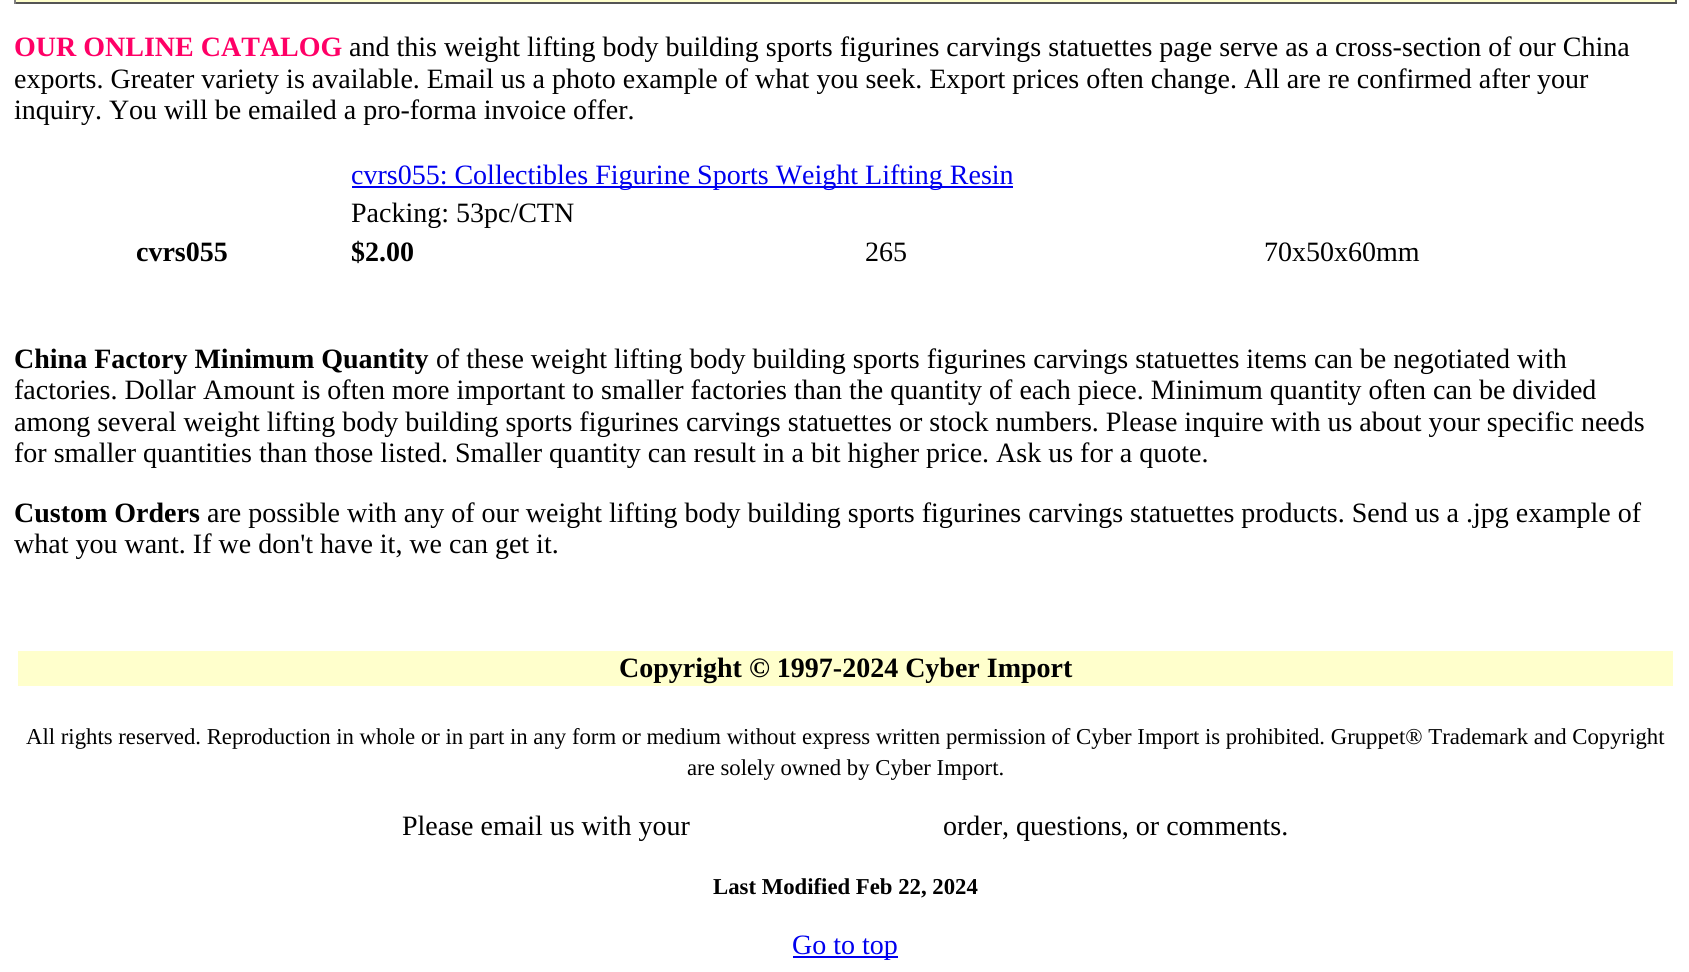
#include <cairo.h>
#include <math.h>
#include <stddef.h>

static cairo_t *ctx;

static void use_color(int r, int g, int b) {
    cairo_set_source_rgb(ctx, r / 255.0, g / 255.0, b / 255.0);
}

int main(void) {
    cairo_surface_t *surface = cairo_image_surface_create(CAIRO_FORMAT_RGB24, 1689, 972);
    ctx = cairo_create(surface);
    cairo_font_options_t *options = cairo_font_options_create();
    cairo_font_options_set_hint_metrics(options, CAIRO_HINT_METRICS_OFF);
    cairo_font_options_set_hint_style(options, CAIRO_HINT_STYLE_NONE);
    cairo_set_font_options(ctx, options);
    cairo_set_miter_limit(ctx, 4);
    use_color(255, 255, 255);
    cairo_paint(ctx);
    use_color(255, 255, 204);
    cairo_rectangle(ctx, 14, 0, 1663, 2);
    cairo_fill(ctx);
    use_color(85, 85, 85);
    cairo_rectangle(ctx, 1675, 0, 2, 4);
    cairo_fill(ctx);
    cairo_rectangle(ctx, 14, 2, 1663, 2);
    cairo_fill(ctx);
    use_color(128, 128, 128);
    cairo_rectangle(ctx, 14, 0, 2, 4);
    cairo_fill(ctx);
    cairo_select_font_face(ctx, "Liberation Serif", CAIRO_FONT_SLANT_NORMAL, CAIRO_FONT_WEIGHT_BOLD);
    cairo_set_font_size(ctx, 28);
    use_color(255, 0, 102);
    cairo_move_to(ctx, 14, 56);
    cairo_show_text(ctx, "OUR ONLINE CATALOG");
    cairo_select_font_face(ctx, "Liberation Serif", CAIRO_FONT_SLANT_NORMAL, CAIRO_FONT_WEIGHT_NORMAL);
    use_color(0, 0, 0);
    cairo_move_to(ctx, 349, 56);
    cairo_show_text(ctx, "and this weight lifting body building sports figurines carvings statuettes page serve as a cross-section of our China");
    cairo_move_to(ctx, 14, 88);
    cairo_show_text(ctx, "exports. Greater variety is available. Email us a photo example of what you seek. Export prices often change. All are re confirmed after your");
    cairo_move_to(ctx, 14, 119);
    cairo_show_text(ctx, "inquiry. You will be emailed a pro-forma invoice offer.");
    use_color(0, 0, 238);
    cairo_rectangle(ctx, 352, 186, 661, 2);
    cairo_fill(ctx);
    cairo_move_to(ctx, 351, 184);
    cairo_show_text(ctx, "cvrs055: Collectibles Figurine Sports Weight Lifting Resin");
    use_color(0, 0, 0);
    cairo_move_to(ctx, 351, 222);
    cairo_show_text(ctx, "Packing: 53pc/CTN");
    cairo_select_font_face(ctx, "Liberation Serif", CAIRO_FONT_SLANT_NORMAL, CAIRO_FONT_WEIGHT_BOLD);
    cairo_move_to(ctx, 136, 261);
    cairo_show_text(ctx, "cvrs055");
    cairo_move_to(ctx, 351, 261);
    cairo_show_text(ctx, "$2.00");
    cairo_select_font_face(ctx, "Liberation Serif", CAIRO_FONT_SLANT_NORMAL, CAIRO_FONT_WEIGHT_NORMAL);
    cairo_move_to(ctx, 865, 261);
    cairo_show_text(ctx, "265");
    cairo_move_to(ctx, 1264, 261);
    cairo_show_text(ctx, "70x50x60mm");
    cairo_select_font_face(ctx, "Liberation Serif", CAIRO_FONT_SLANT_NORMAL, CAIRO_FONT_WEIGHT_BOLD);
    cairo_move_to(ctx, 14, 368);
    cairo_show_text(ctx, "China Factory Minimum Quantity");
    cairo_select_font_face(ctx, "Liberation Serif", CAIRO_FONT_SLANT_NORMAL, CAIRO_FONT_WEIGHT_NORMAL);
    cairo_move_to(ctx, 436, 368);
    cairo_show_text(ctx, "of these weight lifting body building sports figurines carvings statuettes items can be negotiated with");
    cairo_move_to(ctx, 14, 399);
    cairo_show_text(ctx, "factories. Dollar Amount is often more important to smaller factories than the quantity of each piece. Minimum quantity often can be divided");
    cairo_move_to(ctx, 14, 431);
    cairo_show_text(ctx, "among several weight lifting body building sports figurines carvings statuettes or stock numbers. Please inquire with us about your specific needs");
    cairo_move_to(ctx, 14, 462);
    cairo_show_text(ctx, "for smaller quantities than those listed. Smaller quantity can result in a bit higher price. Ask us for a quote.");
    cairo_select_font_face(ctx, "Liberation Serif", CAIRO_FONT_SLANT_NORMAL, CAIRO_FONT_WEIGHT_BOLD);
    cairo_move_to(ctx, 14, 522);
    cairo_show_text(ctx, "Custom Orders");
    cairo_select_font_face(ctx, "Liberation Serif", CAIRO_FONT_SLANT_NORMAL, CAIRO_FONT_WEIGHT_NORMAL);
    cairo_move_to(ctx, 207, 522);
    cairo_show_text(ctx, "are possible with any of our weight lifting body building sports figurines carvings statuettes products. Send us a .jpg example of");
    cairo_move_to(ctx, 14, 553);
    cairo_show_text(ctx, "what you want. If we don't have it, we can get it.");
    use_color(255, 255, 204);
    cairo_rectangle(ctx, 18, 651, 1655, 35);
    cairo_fill(ctx);
    cairo_select_font_face(ctx, "Liberation Serif", CAIRO_FONT_SLANT_NORMAL, CAIRO_FONT_WEIGHT_BOLD);
    use_color(0, 0, 0);
    cairo_move_to(ctx, 619, 677);
    cairo_show_text(ctx, "Copyright © 1997-2024 Cyber Import");
    cairo_select_font_face(ctx, "Liberation Serif", CAIRO_FONT_SLANT_NORMAL, CAIRO_FONT_WEIGHT_NORMAL);
    cairo_set_font_size(ctx, 22.75);
    cairo_move_to(ctx, 26, 744);
    cairo_show_text(ctx, "All rights reserved. Reproduction in whole or in part in any form or medium without express written permission of Cyber Import is prohibited. Gruppet® Trademark and Copyright");
    cairo_move_to(ctx, 687, 775);
    cairo_show_text(ctx, "are solely owned by Cyber Import.");
    cairo_set_font_size(ctx, 28);
    cairo_move_to(ctx, 402, 835);
    cairo_show_text(ctx, "Please email us with your");
    cairo_move_to(ctx, 943, 835);
    cairo_show_text(ctx, "order, questions, or comments.");
    cairo_select_font_face(ctx, "Liberation Serif", CAIRO_FONT_SLANT_NORMAL, CAIRO_FONT_WEIGHT_BOLD);
    cairo_set_font_size(ctx, 22.75);
    cairo_move_to(ctx, 713, 894);
    cairo_show_text(ctx, "Last Modified Feb 22, 2024");
    use_color(0, 0, 238);
    cairo_rectangle(ctx, 793, 956, 105, 2);
    cairo_fill(ctx);
    cairo_select_font_face(ctx, "Liberation Serif", CAIRO_FONT_SLANT_NORMAL, CAIRO_FONT_WEIGHT_NORMAL);
    cairo_set_font_size(ctx, 28);
    cairo_move_to(ctx, 792, 954);
    cairo_show_text(ctx, "Go to top");
    cairo_surface_write_to_png(surface, "result.png");
    cairo_font_options_destroy(options);
    cairo_destroy(ctx);
    cairo_surface_destroy(surface);
    return 0;
}
